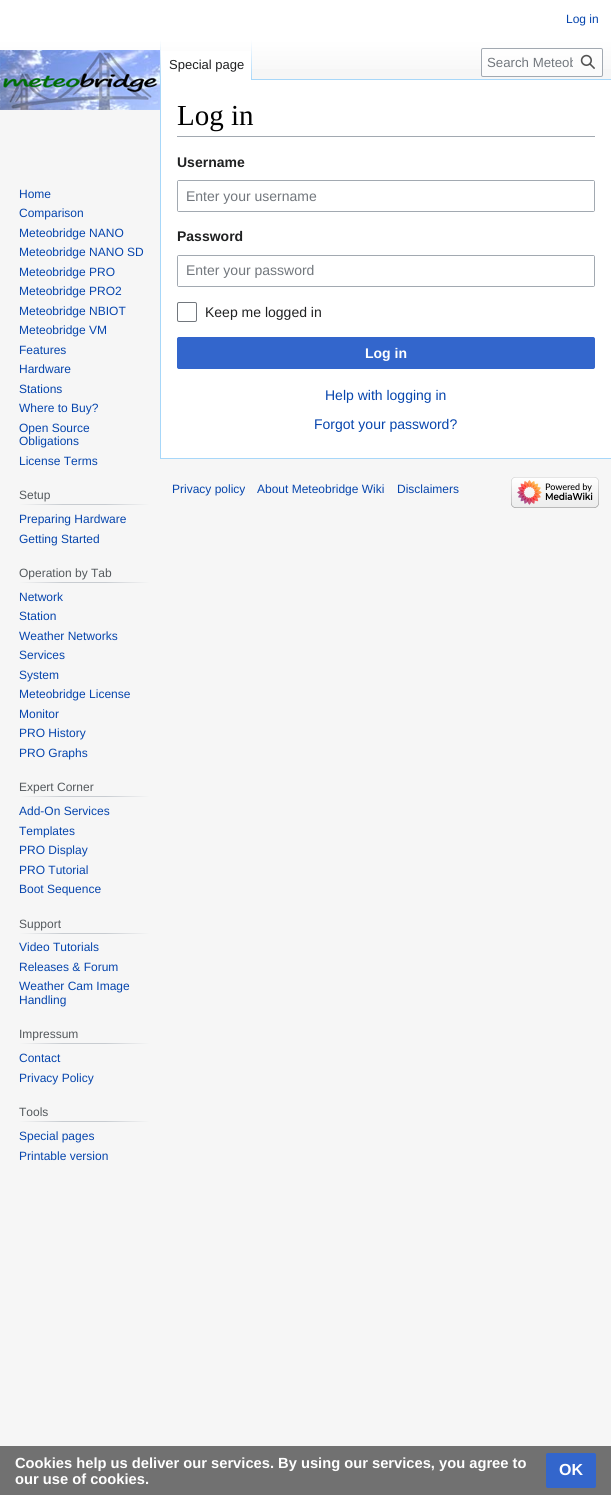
#include <cairo.h>
#include <math.h>
#include <stddef.h>

static cairo_t *ctx;

static void use_color(int r, int g, int b) {
    cairo_set_source_rgb(ctx, r / 255.0, g / 255.0, b / 255.0);
}

static void round_rect(double x, double y, double w, double h, double r) {
    cairo_new_sub_path(ctx);
    cairo_arc(ctx, x + w - r, y + h - r, r, 0, M_PI / 2);
    cairo_arc(ctx, x + r, y + h - r, r, M_PI / 2, M_PI);
    cairo_arc(ctx, x + r, y + r, r, M_PI, 1.5 * M_PI);
    cairo_arc(ctx, x + w - r, y + r, r, 1.5 * M_PI, 2 * M_PI);
    cairo_close_path(ctx);
}

static void picture(const char *path, double x, double y, double w, double h) {
    cairo_surface_t *image = cairo_image_surface_create_from_png(path);
    cairo_save(ctx);
    cairo_set_source_surface(ctx, image, x, y);
    cairo_rectangle(ctx, x, y, w, h);
    cairo_fill(ctx);
    cairo_restore(ctx);
    cairo_surface_destroy(image);
}

int main(void) {
    cairo_surface_t *surface = cairo_image_surface_create(CAIRO_FORMAT_RGB24, 611, 1495);
    ctx = cairo_create(surface);
    cairo_font_options_t *options = cairo_font_options_create();
    cairo_font_options_set_hint_metrics(options, CAIRO_HINT_METRICS_OFF);
    cairo_font_options_set_hint_style(options, CAIRO_HINT_STYLE_NONE);
    cairo_set_font_options(ctx, options);
    cairo_set_miter_limit(ctx, 4);
    cairo_pattern_t *gradient;
    use_color(246, 246, 246);
    cairo_paint(ctx);
    gradient = cairo_pattern_create_linear(306, 0, 306, 80);
    cairo_pattern_add_color_stop_rgba(gradient, 0.5, 1, 1, 1, 1);
    cairo_pattern_add_color_stop_rgba(gradient, 1, 0.965, 0.965, 0.965, 1);
    cairo_set_source(ctx, gradient);
    cairo_pattern_destroy(gradient);
    cairo_rectangle(ctx, 0, 0, 611, 69);
    cairo_fill(ctx);
    cairo_select_font_face(ctx, "Liberation Sans", CAIRO_FONT_SLANT_NORMAL, CAIRO_FONT_WEIGHT_NORMAL);
    cairo_set_font_size(ctx, 12);
    use_color(6, 69, 173);
    cairo_move_to(ctx, 566, 23);
    cairo_show_text(ctx, "Log in");
    use_color(167, 215, 249);
    cairo_rectangle(ctx, 160, 458, 451, 1);
    cairo_fill(ctx);
    cairo_rectangle(ctx, 160, 79, 1, 380);
    cairo_fill(ctx);
    gradient = cairo_pattern_create_linear(161, 40, 161, 80);
    cairo_pattern_add_color_stop_rgba(gradient, 0, 0.655, 0.843, 0.976, 0);
    cairo_pattern_add_color_stop_rgba(gradient, 1, 0.655, 0.843, 0.976, 1);
    cairo_set_source(ctx, gradient);
    cairo_pattern_destroy(gradient);
    cairo_rectangle(ctx, 160, 40, 1, 40);
    cairo_fill(ctx);
    use_color(255, 255, 255);
    cairo_rectangle(ctx, 161, 51, 90, 29);
    cairo_fill(ctx);
    gradient = cairo_pattern_create_linear(252, 40, 252, 80);
    cairo_pattern_add_color_stop_rgba(gradient, 0, 1, 1, 1, 1);
    cairo_pattern_add_color_stop_rgba(gradient, 1, 0.655, 0.843, 0.976, 1);
    cairo_set_source(ctx, gradient);
    cairo_pattern_destroy(gradient);
    cairo_rectangle(ctx, 251, 40, 1, 40);
    cairo_fill(ctx);
    cairo_set_font_size(ctx, 13);
    use_color(32, 33, 34);
    cairo_move_to(ctx, 169, 69);
    cairo_show_text(ctx, "Special page");
    cairo_set_source_rgba(ctx, 1, 1, 1, 0.5);
    round_rect(481.5, 48.5, 121, 28, 1.5);
    cairo_fill_preserve(ctx);
    use_color(162, 169, 177);
    cairo_set_line_width(ctx, 1);
    cairo_stroke(ctx);
    cairo_save(ctx);
    cairo_rectangle(ctx, 487, 55, 86, 15);
    cairo_clip(ctx);
    cairo_set_font_size(ctx, 13.25);
    use_color(114, 119, 125);
    cairo_move_to(ctx, 487, 67);
    cairo_show_text(ctx, "Search Meteob");
    cairo_restore(ctx);
    picture("img1.png", 580, 54, 15, 15);
    picture("img2.png", 0, 50, 160, 60);
    cairo_set_font_size(ctx, 12);
    use_color(6, 69, 173);
    cairo_move_to(ctx, 19, 198);
    cairo_show_text(ctx, "Home");
    cairo_move_to(ctx, 19, 217);
    cairo_show_text(ctx, "Comparison");
    cairo_move_to(ctx, 19, 237);
    cairo_show_text(ctx, "Meteobridge NANO");
    cairo_move_to(ctx, 19, 256);
    cairo_show_text(ctx, "Meteobridge NANO SD");
    cairo_move_to(ctx, 19, 276);
    cairo_show_text(ctx, "Meteobridge PRO");
    cairo_move_to(ctx, 19, 295);
    cairo_show_text(ctx, "Meteobridge PRO2");
    cairo_move_to(ctx, 19, 315);
    cairo_show_text(ctx, "Meteobridge NBIOT");
    cairo_move_to(ctx, 19, 334);
    cairo_show_text(ctx, "Meteobridge VM");
    cairo_move_to(ctx, 19, 354);
    cairo_show_text(ctx, "Features");
    cairo_move_to(ctx, 19, 373);
    cairo_show_text(ctx, "Hardware");
    cairo_move_to(ctx, 19, 393);
    cairo_show_text(ctx, "Stations");
    cairo_move_to(ctx, 19, 412);
    cairo_show_text(ctx, "Where to Buy?");
    cairo_move_to(ctx, 19, 432);
    cairo_show_text(ctx, "Open Source");
    cairo_move_to(ctx, 19, 445);
    cairo_show_text(ctx, "Obligations");
    cairo_move_to(ctx, 19, 465);
    cairo_show_text(ctx, "License Terms");
    gradient = cairo_pattern_create_linear(19, 505, 150, 505);
    cairo_pattern_add_color_stop_rgba(gradient, 0, 0.965, 0.965, 0.965, 1);
    cairo_pattern_add_color_stop_rgba(gradient, 0.33, 0.784, 0.8, 0.82, 1);
    cairo_pattern_add_color_stop_rgba(gradient, 0.66, 0.784, 0.8, 0.82, 1);
    cairo_pattern_add_color_stop_rgba(gradient, 1, 0.965, 0.965, 0.965, 1);
    cairo_set_source(ctx, gradient);
    cairo_pattern_destroy(gradient);
    cairo_rectangle(ctx, 19, 504, 131, 1);
    cairo_fill(ctx);
    use_color(84, 89, 93);
    cairo_move_to(ctx, 19, 499);
    cairo_show_text(ctx, "Setup");
    use_color(6, 69, 173);
    cairo_move_to(ctx, 19, 523);
    cairo_show_text(ctx, "Preparing Hardware");
    cairo_move_to(ctx, 19, 543);
    cairo_show_text(ctx, "Getting Started");
    gradient = cairo_pattern_create_linear(19, 583, 150, 583);
    cairo_pattern_add_color_stop_rgba(gradient, 0, 0.965, 0.965, 0.965, 1);
    cairo_pattern_add_color_stop_rgba(gradient, 0.33, 0.784, 0.8, 0.82, 1);
    cairo_pattern_add_color_stop_rgba(gradient, 0.66, 0.784, 0.8, 0.82, 1);
    cairo_pattern_add_color_stop_rgba(gradient, 1, 0.965, 0.965, 0.965, 1);
    cairo_set_source(ctx, gradient);
    cairo_pattern_destroy(gradient);
    cairo_rectangle(ctx, 19, 582, 131, 1);
    cairo_fill(ctx);
    use_color(84, 89, 93);
    cairo_move_to(ctx, 19, 577);
    cairo_show_text(ctx, "Operation by Tab");
    use_color(6, 69, 173);
    cairo_move_to(ctx, 19, 601);
    cairo_show_text(ctx, "Network");
    cairo_move_to(ctx, 19, 620);
    cairo_show_text(ctx, "Station");
    cairo_move_to(ctx, 19, 640);
    cairo_show_text(ctx, "Weather Networks");
    cairo_move_to(ctx, 19, 659);
    cairo_show_text(ctx, "Services");
    cairo_move_to(ctx, 19, 679);
    cairo_show_text(ctx, "System");
    cairo_move_to(ctx, 19, 698);
    cairo_show_text(ctx, "Meteobridge License");
    cairo_move_to(ctx, 19, 718);
    cairo_show_text(ctx, "Monitor");
    cairo_move_to(ctx, 19, 737);
    cairo_show_text(ctx, "PRO History");
    cairo_move_to(ctx, 19, 757);
    cairo_show_text(ctx, "PRO Graphs");
    gradient = cairo_pattern_create_linear(19, 797, 150, 797);
    cairo_pattern_add_color_stop_rgba(gradient, 0, 0.965, 0.965, 0.965, 1);
    cairo_pattern_add_color_stop_rgba(gradient, 0.33, 0.784, 0.8, 0.82, 1);
    cairo_pattern_add_color_stop_rgba(gradient, 0.66, 0.784, 0.8, 0.82, 1);
    cairo_pattern_add_color_stop_rgba(gradient, 1, 0.965, 0.965, 0.965, 1);
    cairo_set_source(ctx, gradient);
    cairo_pattern_destroy(gradient);
    cairo_rectangle(ctx, 19, 796, 131, 1);
    cairo_fill(ctx);
    use_color(84, 89, 93);
    cairo_move_to(ctx, 19, 791);
    cairo_show_text(ctx, "Expert Corner");
    use_color(6, 69, 173);
    cairo_move_to(ctx, 19, 815);
    cairo_show_text(ctx, "Add-On Services");
    cairo_move_to(ctx, 19, 835);
    cairo_show_text(ctx, "Templates");
    cairo_move_to(ctx, 19, 854);
    cairo_show_text(ctx, "PRO Display");
    cairo_move_to(ctx, 19, 874);
    cairo_show_text(ctx, "PRO Tutorial");
    cairo_move_to(ctx, 19, 893);
    cairo_show_text(ctx, "Boot Sequence");
    gradient = cairo_pattern_create_linear(19, 934, 150, 934);
    cairo_pattern_add_color_stop_rgba(gradient, 0, 0.965, 0.965, 0.965, 1);
    cairo_pattern_add_color_stop_rgba(gradient, 0.33, 0.784, 0.8, 0.82, 1);
    cairo_pattern_add_color_stop_rgba(gradient, 0.66, 0.784, 0.8, 0.82, 1);
    cairo_pattern_add_color_stop_rgba(gradient, 1, 0.965, 0.965, 0.965, 1);
    cairo_set_source(ctx, gradient);
    cairo_pattern_destroy(gradient);
    cairo_rectangle(ctx, 19, 933, 131, 1);
    cairo_fill(ctx);
    use_color(84, 89, 93);
    cairo_move_to(ctx, 19, 928);
    cairo_show_text(ctx, "Support");
    use_color(6, 69, 173);
    cairo_move_to(ctx, 19, 951);
    cairo_show_text(ctx, "Video Tutorials");
    cairo_move_to(ctx, 19, 971);
    cairo_show_text(ctx, "Releases & Forum");
    cairo_move_to(ctx, 19, 990);
    cairo_show_text(ctx, "Weather Cam Image");
    cairo_move_to(ctx, 19, 1004);
    cairo_show_text(ctx, "Handling");
    gradient = cairo_pattern_create_linear(19, 1044, 150, 1044);
    cairo_pattern_add_color_stop_rgba(gradient, 0, 0.965, 0.965, 0.965, 1);
    cairo_pattern_add_color_stop_rgba(gradient, 0.33, 0.784, 0.8, 0.82, 1);
    cairo_pattern_add_color_stop_rgba(gradient, 0.66, 0.784, 0.8, 0.82, 1);
    cairo_pattern_add_color_stop_rgba(gradient, 1, 0.965, 0.965, 0.965, 1);
    cairo_set_source(ctx, gradient);
    cairo_pattern_destroy(gradient);
    cairo_rectangle(ctx, 19, 1043, 131, 1);
    cairo_fill(ctx);
    use_color(84, 89, 93);
    cairo_move_to(ctx, 19, 1038);
    cairo_show_text(ctx, "Impressum");
    use_color(6, 69, 173);
    cairo_move_to(ctx, 19, 1062);
    cairo_show_text(ctx, "Contact");
    cairo_move_to(ctx, 19, 1082);
    cairo_show_text(ctx, "Privacy Policy");
    gradient = cairo_pattern_create_linear(19, 1122, 150, 1122);
    cairo_pattern_add_color_stop_rgba(gradient, 0, 0.965, 0.965, 0.965, 1);
    cairo_pattern_add_color_stop_rgba(gradient, 0.33, 0.784, 0.8, 0.82, 1);
    cairo_pattern_add_color_stop_rgba(gradient, 0.66, 0.784, 0.8, 0.82, 1);
    cairo_pattern_add_color_stop_rgba(gradient, 1, 0.965, 0.965, 0.965, 1);
    cairo_set_source(ctx, gradient);
    cairo_pattern_destroy(gradient);
    cairo_rectangle(ctx, 19, 1121, 131, 1);
    cairo_fill(ctx);
    use_color(84, 89, 93);
    cairo_move_to(ctx, 19, 1116);
    cairo_show_text(ctx, "Tools");
    use_color(6, 69, 173);
    cairo_move_to(ctx, 19, 1140);
    cairo_show_text(ctx, "Special pages");
    cairo_move_to(ctx, 19, 1160);
    cairo_show_text(ctx, "Printable version");
    use_color(255, 255, 255);
    cairo_rectangle(ctx, 161, 80, 450, 378);
    cairo_fill(ctx);
    use_color(167, 215, 249);
    cairo_rectangle(ctx, 252, 79, 359, 1);
    cairo_fill(ctx);
    use_color(162, 169, 177);
    cairo_rectangle(ctx, 177, 136, 418, 1);
    cairo_fill(ctx);
    cairo_select_font_face(ctx, "Liberation Serif", CAIRO_FONT_SLANT_NORMAL, CAIRO_FONT_WEIGHT_NORMAL);
    cairo_set_font_size(ctx, 29);
    use_color(0, 0, 0);
    cairo_move_to(ctx, 177, 125);
    cairo_show_text(ctx, "Log in");
    cairo_select_font_face(ctx, "Liberation Sans", CAIRO_FONT_SLANT_NORMAL, CAIRO_FONT_WEIGHT_BOLD);
    cairo_set_font_size(ctx, 14);
    use_color(32, 33, 34);
    cairo_move_to(ctx, 177, 167);
    cairo_show_text(ctx, "Username");
    use_color(162, 169, 177);
    cairo_set_fill_rule(ctx, CAIRO_FILL_RULE_EVEN_ODD);
    cairo_new_path(ctx);
    cairo_move_to(ctx, 179, 180);
    cairo_curve_to(ctx, 178, 180, 177, 181, 177, 182);
    cairo_line_to(ctx, 177, 210);
    cairo_curve_to(ctx, 177, 211, 178, 212, 179, 212);
    cairo_line_to(ctx, 593, 212);
    cairo_curve_to(ctx, 594, 212, 595, 211, 595, 210);
    cairo_line_to(ctx, 595, 182);
    cairo_curve_to(ctx, 595, 181, 594, 180, 593, 180);
    cairo_close_path(ctx);
    cairo_move_to(ctx, 178, 181);
    cairo_line_to(ctx, 178, 211);
    cairo_line_to(ctx, 594, 211);
    cairo_line_to(ctx, 594, 181);
    cairo_close_path(ctx);
    cairo_fill(ctx);
    cairo_select_font_face(ctx, "Liberation Sans", CAIRO_FONT_SLANT_NORMAL, CAIRO_FONT_WEIGHT_NORMAL);
    use_color(114, 119, 125);
    cairo_move_to(ctx, 186, 201);
    cairo_show_text(ctx, "Enter your username");
    cairo_select_font_face(ctx, "Liberation Sans", CAIRO_FONT_SLANT_NORMAL, CAIRO_FONT_WEIGHT_BOLD);
    use_color(32, 33, 34);
    cairo_move_to(ctx, 177, 241);
    cairo_show_text(ctx, "Password");
    use_color(162, 169, 177);
    cairo_new_path(ctx);
    cairo_move_to(ctx, 179, 255);
    cairo_curve_to(ctx, 178, 255, 177, 256, 177, 257);
    cairo_line_to(ctx, 177, 285);
    cairo_curve_to(ctx, 177, 286, 178, 287, 179, 287);
    cairo_line_to(ctx, 593, 287);
    cairo_curve_to(ctx, 594, 287, 595, 286, 595, 285);
    cairo_line_to(ctx, 595, 257);
    cairo_curve_to(ctx, 595, 256, 594, 255, 593, 255);
    cairo_close_path(ctx);
    cairo_move_to(ctx, 178, 256);
    cairo_line_to(ctx, 178, 286);
    cairo_line_to(ctx, 594, 286);
    cairo_line_to(ctx, 594, 256);
    cairo_close_path(ctx);
    cairo_fill(ctx);
    cairo_select_font_face(ctx, "Liberation Sans", CAIRO_FONT_SLANT_NORMAL, CAIRO_FONT_WEIGHT_NORMAL);
    use_color(114, 119, 125);
    cairo_move_to(ctx, 186, 275);
    cairo_show_text(ctx, "Enter your password");
    round_rect(177.5, 302.5, 19, 19, 1.5);
    cairo_stroke(ctx);
    use_color(32, 33, 34);
    cairo_move_to(ctx, 205, 317);
    cairo_show_text(ctx, "Keep me logged in");
    use_color(51, 102, 204);
    round_rect(177.5, 337.5, 417, 31, 1.5);
    cairo_fill_preserve(ctx);
    cairo_stroke(ctx);
    cairo_select_font_face(ctx, "Liberation Sans", CAIRO_FONT_SLANT_NORMAL, CAIRO_FONT_WEIGHT_BOLD);
    use_color(255, 255, 255);
    cairo_move_to(ctx, 365, 358);
    cairo_show_text(ctx, "Log in");
    cairo_select_font_face(ctx, "Liberation Sans", CAIRO_FONT_SLANT_NORMAL, CAIRO_FONT_WEIGHT_NORMAL);
    use_color(6, 69, 173);
    cairo_move_to(ctx, 325, 400);
    cairo_show_text(ctx, "Help with logging in");
    cairo_move_to(ctx, 314, 429);
    cairo_show_text(ctx, "Forgot your password?");
    cairo_set_font_size(ctx, 12);
    cairo_move_to(ctx, 172, 493);
    cairo_show_text(ctx, "Privacy policy");
    cairo_move_to(ctx, 257, 493);
    cairo_show_text(ctx, "About Meteobridge Wiki");
    cairo_move_to(ctx, 397, 493);
    cairo_show_text(ctx, "Disclaimers");
    picture("img3.png", 511, 477, 88, 31);
    use_color(113, 113, 113);
    cairo_rectangle(ctx, 0, 1446, 611, 49);
    cairo_fill(ctx);
    cairo_select_font_face(ctx, "Liberation Sans", CAIRO_FONT_SLANT_NORMAL, CAIRO_FONT_WEIGHT_BOLD);
    cairo_set_font_size(ctx, 14.7);
    use_color(255, 255, 255);
    cairo_move_to(ctx, 15, 1468);
    cairo_show_text(ctx, "Cookies help us deliver our services. By using our services, you agree to");
    cairo_move_to(ctx, 15, 1484);
    cairo_show_text(ctx, "our use of cookies.");
    use_color(51, 102, 204);
    round_rect(546.5, 1453.5, 49, 34, 1.5);
    cairo_fill_preserve(ctx);
    cairo_stroke(ctx);
    cairo_set_font_size(ctx, 16);
    use_color(255, 255, 255);
    cairo_move_to(ctx, 559, 1475);
    cairo_show_text(ctx, "OK");
    cairo_surface_write_to_png(surface, "result.png");
    cairo_font_options_destroy(options);
    cairo_destroy(ctx);
    cairo_surface_destroy(surface);
    return 0;
}
